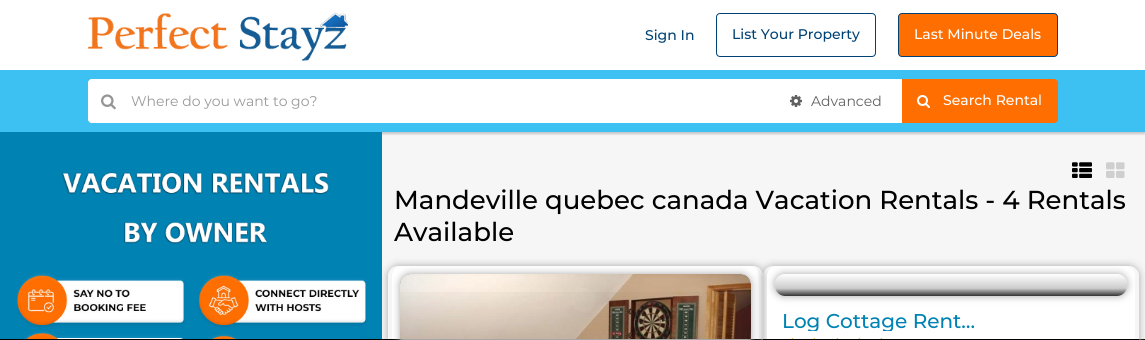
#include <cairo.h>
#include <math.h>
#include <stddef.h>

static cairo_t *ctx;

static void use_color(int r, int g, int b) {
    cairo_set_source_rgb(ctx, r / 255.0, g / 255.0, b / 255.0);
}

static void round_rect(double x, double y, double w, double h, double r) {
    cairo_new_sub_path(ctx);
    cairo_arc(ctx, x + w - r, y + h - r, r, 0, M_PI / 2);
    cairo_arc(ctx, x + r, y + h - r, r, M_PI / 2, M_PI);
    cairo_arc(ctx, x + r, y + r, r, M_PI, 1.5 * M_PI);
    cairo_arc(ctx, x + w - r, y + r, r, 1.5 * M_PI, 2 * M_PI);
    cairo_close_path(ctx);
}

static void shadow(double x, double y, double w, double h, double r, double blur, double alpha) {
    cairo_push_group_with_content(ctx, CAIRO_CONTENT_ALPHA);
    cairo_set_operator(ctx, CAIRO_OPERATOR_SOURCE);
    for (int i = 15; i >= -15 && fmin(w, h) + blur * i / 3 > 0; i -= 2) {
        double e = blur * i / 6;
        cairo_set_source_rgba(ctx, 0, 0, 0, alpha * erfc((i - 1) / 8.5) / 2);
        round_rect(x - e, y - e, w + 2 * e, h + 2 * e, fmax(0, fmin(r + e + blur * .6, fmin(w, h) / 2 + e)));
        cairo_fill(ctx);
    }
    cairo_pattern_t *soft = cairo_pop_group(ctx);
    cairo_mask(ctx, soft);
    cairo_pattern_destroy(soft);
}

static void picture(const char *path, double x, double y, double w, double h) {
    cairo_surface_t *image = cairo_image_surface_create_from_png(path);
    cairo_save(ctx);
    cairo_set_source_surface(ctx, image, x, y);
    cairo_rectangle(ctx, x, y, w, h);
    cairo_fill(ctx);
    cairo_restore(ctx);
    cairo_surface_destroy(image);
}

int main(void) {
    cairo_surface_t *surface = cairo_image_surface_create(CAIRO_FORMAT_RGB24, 1145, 340);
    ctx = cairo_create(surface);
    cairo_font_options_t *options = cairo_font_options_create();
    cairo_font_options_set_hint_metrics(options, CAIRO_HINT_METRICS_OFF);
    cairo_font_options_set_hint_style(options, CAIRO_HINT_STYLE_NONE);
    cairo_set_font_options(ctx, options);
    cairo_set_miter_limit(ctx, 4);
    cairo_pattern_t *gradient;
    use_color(246, 246, 246);
    cairo_paint(ctx);
    use_color(255, 255, 255);
    cairo_rectangle(ctx, 0, 0, 1145, 70);
    cairo_fill(ctx);
    picture("img1.png", 88, 12, 260, 49);
    cairo_select_font_face(ctx, "Montserrat Medium", CAIRO_FONT_SLANT_NORMAL, CAIRO_FONT_WEIGHT_NORMAL);
    cairo_set_font_size(ctx, 14);
    use_color(0, 66, 116);
    cairo_move_to(ctx, 645, 40);
    cairo_show_text(ctx, "Sign In");
    round_rect(716.5, 13.5, 159, 43, 3.5);
    cairo_set_line_width(ctx, 1);
    cairo_stroke(ctx);
    cairo_move_to(ctx, 732, 39);
    cairo_show_text(ctx, "List Your Property");
    use_color(255, 110, 0);
    round_rect(898.5, 13.5, 159, 43, 3.5);
    cairo_fill_preserve(ctx);
    use_color(0, 66, 116);
    cairo_stroke(ctx);
    use_color(255, 255, 255);
    cairo_move_to(ctx, 914, 39);
    cairo_show_text(ctx, "Last Minute Deals");
    use_color(0, 0, 0);
    shadow(0, 72, 1145, 62, 0, 1, 0.2);
    use_color(61, 192, 242);
    cairo_rectangle(ctx, 0, 70, 1145, 62);
    cairo_fill(ctx);
    use_color(255, 255, 255);
    cairo_new_path(ctx);
    cairo_move_to(ctx, 92, 79);
    cairo_line_to(ctx, 902, 79);
    cairo_line_to(ctx, 902, 123);
    cairo_line_to(ctx, 92, 123);
    cairo_curve_to(ctx, 90, 123, 88, 121, 88, 119);
    cairo_line_to(ctx, 88, 83);
    cairo_curve_to(ctx, 88, 81, 90, 79, 92, 79);
    cairo_close_path(ctx);
    cairo_fill(ctx);
    cairo_set_fill_rule(ctx, CAIRO_FILL_RULE_EVEN_ODD);
    cairo_new_path(ctx);
    cairo_move_to(ctx, 92, 79);
    cairo_line_to(ctx, 902, 79);
    cairo_line_to(ctx, 902, 123);
    cairo_line_to(ctx, 92, 123);
    cairo_curve_to(ctx, 90, 123, 88, 121, 88, 119);
    cairo_line_to(ctx, 88, 83);
    cairo_curve_to(ctx, 88, 81, 90, 79, 92, 79);
    cairo_close_path(ctx);
    cairo_move_to(ctx, 92, 80);
    cairo_line_to(ctx, 902, 80);
    cairo_line_to(ctx, 902, 122);
    cairo_line_to(ctx, 92, 122);
    cairo_curve_to(ctx, 90, 122, 89, 121, 89, 119);
    cairo_line_to(ctx, 89, 83);
    cairo_curve_to(ctx, 89, 81, 90, 80, 92, 80);
    cairo_close_path(ctx);
    cairo_fill(ctx);
    picture("img2.png", 101, 94, 15, 16);
    cairo_select_font_face(ctx, "Montserrat", CAIRO_FONT_SLANT_NORMAL, CAIRO_FONT_WEIGHT_NORMAL);
    use_color(153, 153, 153);
    cairo_move_to(ctx, 131, 106);
    cairo_show_text(ctx, "Where do you want to go?");
    picture("img3.png", 790, 95, 12, 12);
    use_color(97, 97, 97);
    cairo_move_to(ctx, 811, 106);
    cairo_show_text(ctx, "Advanced");
    use_color(255, 110, 0);
    cairo_new_path(ctx);
    cairo_move_to(ctx, 902, 79);
    cairo_line_to(ctx, 1054, 79);
    cairo_curve_to(ctx, 1056, 79, 1058, 81, 1058, 83);
    cairo_line_to(ctx, 1058, 119);
    cairo_curve_to(ctx, 1058, 121, 1056, 123, 1054, 123);
    cairo_line_to(ctx, 902, 123);
    cairo_close_path(ctx);
    cairo_fill(ctx);
    picture("img4.png", 917, 95, 13, 13);
    cairo_select_font_face(ctx, "Montserrat Medium", CAIRO_FONT_SLANT_NORMAL, CAIRO_FONT_WEIGHT_NORMAL);
    use_color(255, 255, 255);
    cairo_move_to(ctx, 943, 105);
    cairo_show_text(ctx, "Search Rental");
    use_color(0, 130, 179);
    cairo_rectangle(ctx, 0, 132, 382, 207);
    cairo_fill(ctx);
    picture("img5.png", 17, 172, 351, 167);
    picture("img6.png", 1072, 162, 20, 16);
    picture("img7.png", 1106, 162, 19, 16);
    cairo_set_font_size(ctx, 26);
    use_color(0, 0, 0);
    cairo_move_to(ctx, 394, 209);
    cairo_show_text(ctx, "Mandeville quebec canada Vacation Rentals - 4 Rentals");
    cairo_move_to(ctx, 394, 241);
    cairo_show_text(ctx, "Available");
    cairo_rectangle(ctx, 0, 339, 1145, 1);
    cairo_fill(ctx);
    cairo_save(ctx);
    cairo_set_fill_rule(ctx, CAIRO_FILL_RULE_WINDING);
    cairo_rectangle(ctx, 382, 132, 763, 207);
    cairo_clip(ctx);
    cairo_set_fill_rule(ctx, CAIRO_FILL_RULE_EVEN_ODD);
    cairo_new_path(ctx);
    cairo_move_to(ctx, 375, 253);
    cairo_line_to(ctx, 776, 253);
    cairo_line_to(ctx, 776, 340);
    cairo_line_to(ctx, 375, 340);
    cairo_close_path(ctx);
    cairo_move_to(ctx, 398, 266);
    cairo_line_to(ctx, 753, 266);
    cairo_curve_to(ctx, 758.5, 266, 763, 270.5, 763, 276);
    cairo_line_to(ctx, 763, 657);
    cairo_curve_to(ctx, 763, 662.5, 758.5, 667, 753, 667);
    cairo_line_to(ctx, 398, 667);
    cairo_curve_to(ctx, 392.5, 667, 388, 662.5, 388, 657);
    cairo_line_to(ctx, 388, 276);
    cairo_curve_to(ctx, 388, 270.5, 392.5, 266, 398, 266);
    cairo_close_path(ctx);
    cairo_clip(ctx);
    use_color(167, 167, 167);
    shadow(388, 266, 375, 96, 10, 4, 1);
    cairo_restore(ctx);
    use_color(255, 255, 255);
    cairo_new_path(ctx);
    cairo_move_to(ctx, 402, 266);
    cairo_line_to(ctx, 749, 266);
    cairo_curve_to(ctx, 754.5, 266, 759, 270.5, 759, 276);
    cairo_line_to(ctx, 759, 339);
    cairo_line_to(ctx, 392, 339);
    cairo_line_to(ctx, 392, 276);
    cairo_curve_to(ctx, 392, 270.5, 396.5, 266, 402, 266);
    cairo_close_path(ctx);
    cairo_fill(ctx);
    use_color(167, 167, 167);
    shadow(400, 274, 351, 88, 10, 4, 1);
    cairo_save(ctx);
    cairo_set_fill_rule(ctx, CAIRO_FILL_RULE_WINDING);
    round_rect(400, 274, 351, 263, 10);
    cairo_clip(ctx);
    shadow(400, 274, 351, 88, 10, 4, 1);
    cairo_restore(ctx);
    cairo_save(ctx);
    cairo_new_path(ctx);
    cairo_move_to(ctx, 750, 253);
    cairo_line_to(ctx, 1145, 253);
    cairo_line_to(ctx, 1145, 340);
    cairo_line_to(ctx, 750, 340);
    cairo_close_path(ctx);
    cairo_move_to(ctx, 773, 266);
    cairo_line_to(ctx, 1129, 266);
    cairo_curve_to(ctx, 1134.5, 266, 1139, 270.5, 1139, 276);
    cairo_line_to(ctx, 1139, 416);
    cairo_curve_to(ctx, 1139, 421.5, 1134.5, 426, 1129, 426);
    cairo_line_to(ctx, 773, 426);
    cairo_curve_to(ctx, 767.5, 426, 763, 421.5, 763, 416);
    cairo_line_to(ctx, 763, 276);
    cairo_curve_to(ctx, 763, 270.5, 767.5, 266, 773, 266);
    cairo_close_path(ctx);
    cairo_clip(ctx);
    shadow(763, 266, 376, 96, 10, 4, 1);
    cairo_restore(ctx);
    picture("img8.png", 400, 274, 351, 65);
    gradient = cairo_pattern_create_linear(576, 274, 576, 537);
    cairo_pattern_add_color_stop_rgba(gradient, 0, 0, 0, 0, 0);
    cairo_pattern_add_color_stop_rgba(gradient, 0.65, 0, 0, 0, 0.2);
    cairo_pattern_add_color_stop_rgba(gradient, 1, 0, 0, 0, 0.8);
    cairo_set_source(ctx, gradient);
    cairo_pattern_destroy(gradient);
    cairo_rectangle(ctx, 400, 292, 351, 47);
    cairo_fill(ctx);
    use_color(255, 255, 255);
    cairo_new_path(ctx);
    cairo_move_to(ctx, 777, 266);
    cairo_line_to(ctx, 1125, 266);
    cairo_curve_to(ctx, 1130.5, 266, 1135, 270.5, 1135, 276);
    cairo_line_to(ctx, 1135, 339);
    cairo_line_to(ctx, 767, 339);
    cairo_line_to(ctx, 767, 276);
    cairo_curve_to(ctx, 767, 270.5, 771.5, 266, 777, 266);
    cairo_close_path(ctx);
    cairo_fill(ctx);
    cairo_save(ctx);
    cairo_new_path(ctx);
    cairo_move_to(ctx, 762, 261);
    cairo_line_to(ctx, 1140, 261);
    cairo_line_to(ctx, 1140, 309);
    cairo_line_to(ctx, 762, 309);
    cairo_close_path(ctx);
    cairo_move_to(ctx, 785, 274);
    cairo_line_to(ctx, 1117, 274);
    cairo_curve_to(ctx, 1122.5, 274, 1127, 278.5, 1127, 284);
    cairo_line_to(ctx, 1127, 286);
    cairo_curve_to(ctx, 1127, 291.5, 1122.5, 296, 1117, 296);
    cairo_line_to(ctx, 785, 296);
    cairo_curve_to(ctx, 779.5, 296, 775, 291.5, 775, 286);
    cairo_line_to(ctx, 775, 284);
    cairo_curve_to(ctx, 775, 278.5, 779.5, 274, 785, 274);
    cairo_close_path(ctx);
    cairo_clip(ctx);
    use_color(167, 167, 167);
    shadow(775, 274, 352, 22, 10, 4, 1);
    cairo_restore(ctx);
    gradient = cairo_pattern_create_linear(951, 274, 951, 296);
    cairo_pattern_add_color_stop_rgba(gradient, 0, 0, 0, 0, 0);
    cairo_pattern_add_color_stop_rgba(gradient, 0.65, 0, 0, 0, 0.2);
    cairo_pattern_add_color_stop_rgba(gradient, 1, 0, 0, 0, 0.8);
    cairo_set_source(ctx, gradient);
    cairo_pattern_destroy(gradient);
    round_rect(775, 274, 352, 22, 10);
    cairo_fill(ctx);
    cairo_save(ctx);
    cairo_set_fill_rule(ctx, CAIRO_FILL_RULE_WINDING);
    cairo_rectangle(ctx, 782, 311, 200, 20);
    cairo_clip(ctx);
    cairo_set_font_size(ctx, 20);
    use_color(0, 131, 179);
    cairo_move_to(ctx, 782, 328);
    cairo_show_text(ctx, "Log Cottage Rent…");
    cairo_restore(ctx);
    picture("img9.png", 791, 338, 3, 1);
    picture("img9.png", 813, 338, 3, 1);
    picture("img9.png", 836, 338, 3, 1);
    picture("img9.png", 858, 338, 3, 1);
    picture("img9.png", 880, 338, 3, 1);
    cairo_surface_write_to_png(surface, "result.png");
    cairo_font_options_destroy(options);
    cairo_destroy(ctx);
    cairo_surface_destroy(surface);
    return 0;
}
